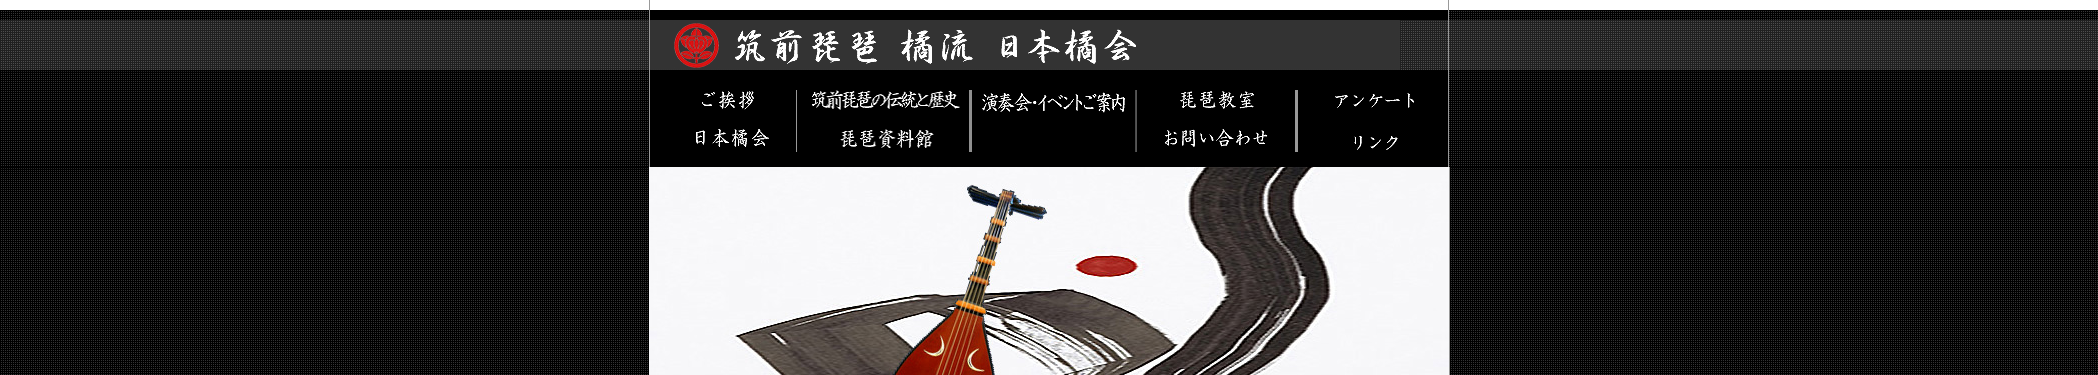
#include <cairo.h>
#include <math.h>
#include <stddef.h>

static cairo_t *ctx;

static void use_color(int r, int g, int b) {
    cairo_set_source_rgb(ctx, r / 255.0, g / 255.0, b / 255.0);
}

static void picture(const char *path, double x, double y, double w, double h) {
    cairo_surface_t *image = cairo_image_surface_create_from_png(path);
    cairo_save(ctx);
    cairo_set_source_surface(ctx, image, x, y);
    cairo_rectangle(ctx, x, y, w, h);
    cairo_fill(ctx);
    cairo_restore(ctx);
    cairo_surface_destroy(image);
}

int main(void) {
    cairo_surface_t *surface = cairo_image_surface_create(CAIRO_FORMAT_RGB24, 2098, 375);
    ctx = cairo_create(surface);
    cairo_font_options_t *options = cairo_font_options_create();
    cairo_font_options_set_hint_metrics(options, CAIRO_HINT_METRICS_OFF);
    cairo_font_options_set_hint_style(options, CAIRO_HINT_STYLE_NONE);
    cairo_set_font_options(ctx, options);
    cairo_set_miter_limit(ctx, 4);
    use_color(255, 255, 255);
    cairo_paint(ctx);
    picture("img1.png", 0, 10, 2098, 60);
    use_color(153, 153, 153);
    cairo_rectangle(ctx, 649, 0, 1, 70);
    cairo_fill(ctx);
    cairo_rectangle(ctx, 1448, 0, 1, 70);
    cairo_fill(ctx);
    use_color(0, 0, 0);
    cairo_rectangle(ctx, 651, 11, 797, 9);
    cairo_fill(ctx);
    picture("img2.png", 650, 20, 750, 50);
    cairo_rectangle(ctx, 0, 70, 2098, 97);
    cairo_fill(ctx);
    picture("img3.png", 1, 71, 2097, 95);
    cairo_rectangle(ctx, 651, 71, 797, 95);
    cairo_fill(ctx);
    use_color(153, 153, 153);
    cairo_rectangle(ctx, 649, 70, 1, 97);
    cairo_fill(ctx);
    cairo_rectangle(ctx, 1448, 70, 1, 97);
    cairo_fill(ctx);
    picture("img4.png", 702, 91, 52, 19);
    picture("img5.png", 696, 129, 73, 18);
    cairo_rectangle(ctx, 796, 90, 1, 62);
    cairo_fill(ctx);
    picture("img6.png", 812, 90, 148, 20);
    picture("img7.png", 840, 129, 94, 19);
    use_color(144, 144, 144);
    cairo_rectangle(ctx, 969, 90, 3, 62);
    cairo_fill(ctx);
    picture("img8.png", 982, 92, 143, 21);
    picture("img9.png", 1135, 90, 2, 62);
    picture("img10.png", 1180, 91, 74, 18);
    picture("img11.png", 1165, 129, 103, 18);
    use_color(153, 153, 153);
    cairo_rectangle(ctx, 1295, 90, 3, 62);
    cairo_fill(ctx);
    picture("img12.png", 1335, 93, 79, 15);
    picture("img13.png", 1354, 136, 44, 14);
    picture("img14.png", 0, 167, 2098, 208);
    picture("img15.png", 649, 167, 800, 208);
    cairo_rectangle(ctx, 1449, 167, 1, 208);
    cairo_fill(ctx);
    cairo_surface_write_to_png(surface, "result.png");
    cairo_font_options_destroy(options);
    cairo_destroy(ctx);
    cairo_surface_destroy(surface);
    return 0;
}
